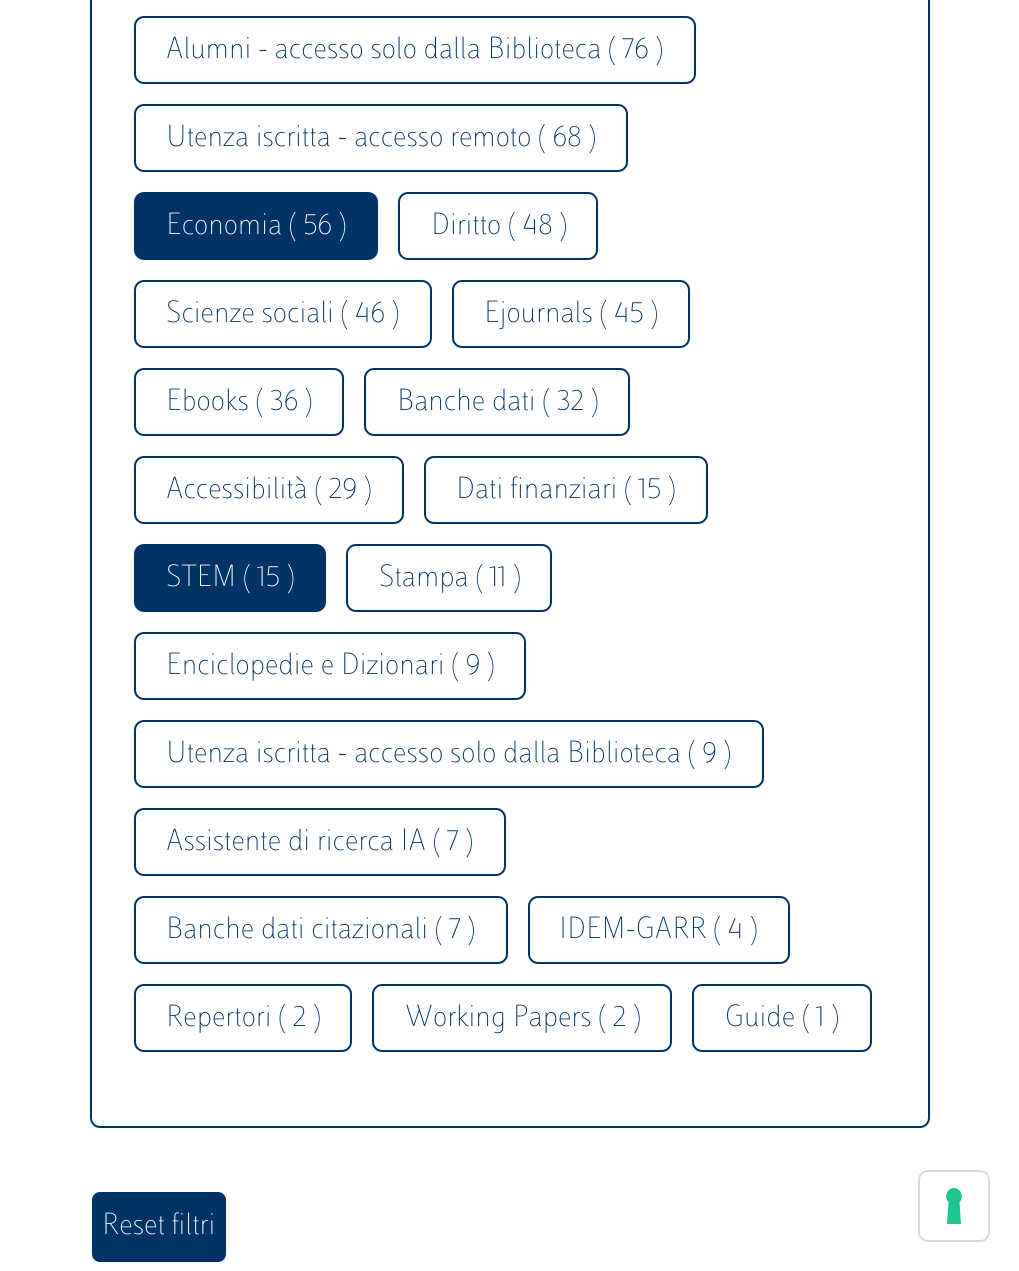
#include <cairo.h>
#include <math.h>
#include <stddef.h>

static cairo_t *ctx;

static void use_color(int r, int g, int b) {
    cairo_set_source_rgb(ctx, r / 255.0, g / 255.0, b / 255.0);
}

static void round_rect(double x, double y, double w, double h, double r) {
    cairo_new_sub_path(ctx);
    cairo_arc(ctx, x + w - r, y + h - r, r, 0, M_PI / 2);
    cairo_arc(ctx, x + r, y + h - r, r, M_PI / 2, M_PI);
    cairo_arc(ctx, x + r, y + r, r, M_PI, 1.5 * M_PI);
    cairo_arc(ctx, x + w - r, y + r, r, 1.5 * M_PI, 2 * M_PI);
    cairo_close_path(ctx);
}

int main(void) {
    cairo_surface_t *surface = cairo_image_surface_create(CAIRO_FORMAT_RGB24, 1019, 1271);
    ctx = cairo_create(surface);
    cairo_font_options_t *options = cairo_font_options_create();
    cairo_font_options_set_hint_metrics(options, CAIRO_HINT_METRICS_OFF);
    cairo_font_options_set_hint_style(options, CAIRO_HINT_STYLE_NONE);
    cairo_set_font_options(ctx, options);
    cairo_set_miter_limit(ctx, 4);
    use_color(255, 255, 255);
    cairo_paint(ctx);
    round_rect(91, -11, 838, 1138, 9);
    use_color(0, 51, 101);
    cairo_stroke(ctx);
    round_rect(135, 17, 560, 66, 9);
    cairo_stroke(ctx);
    cairo_select_font_face(ctx, "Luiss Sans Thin", CAIRO_FONT_SLANT_NORMAL, CAIRO_FONT_WEIGHT_NORMAL);
    cairo_set_font_size(ctx, 32);
    cairo_move_to(ctx, 166, 58);
    cairo_show_text(ctx, "Alumni - accesso solo dalla Biblioteca ( 76 )");
    round_rect(135, 105, 492, 66, 9);
    cairo_stroke(ctx);
    cairo_move_to(ctx, 166, 146);
    cairo_show_text(ctx, "Utenza iscritta - accesso remoto ( 68 )");
    round_rect(135, 193, 242, 66, 9);
    cairo_fill_preserve(ctx);
    cairo_stroke(ctx);
    use_color(255, 255, 255);
    cairo_move_to(ctx, 166, 234);
    cairo_show_text(ctx, "Economia ( 56 )");
    round_rect(399, 193, 198, 66, 9);
    use_color(0, 51, 101);
    cairo_stroke(ctx);
    cairo_move_to(ctx, 431, 234);
    cairo_show_text(ctx, "Diritto ( 48 )");
    round_rect(135, 281, 296, 66, 9);
    cairo_stroke(ctx);
    cairo_move_to(ctx, 166, 322);
    cairo_show_text(ctx, "Scienze sociali ( 46 )");
    round_rect(453, 281, 236, 66, 9);
    cairo_stroke(ctx);
    cairo_move_to(ctx, 484, 322);
    cairo_show_text(ctx, "Ejournals ( 45 )");
    round_rect(135, 369, 208, 66, 9);
    cairo_stroke(ctx);
    cairo_move_to(ctx, 166, 410);
    cairo_show_text(ctx, "Ebooks ( 36 )");
    round_rect(365, 369, 264, 66, 9);
    cairo_stroke(ctx);
    cairo_move_to(ctx, 397, 410);
    cairo_show_text(ctx, "Banche dati ( 32 )");
    round_rect(135, 457, 268, 66, 9);
    cairo_stroke(ctx);
    cairo_move_to(ctx, 166, 498);
    cairo_show_text(ctx, "Accessibilità ( 29 )");
    round_rect(425, 457, 282, 66, 9);
    cairo_stroke(ctx);
    cairo_move_to(ctx, 456, 498);
    cairo_show_text(ctx, "Dati finanziari ( 15 )");
    round_rect(135, 545, 190, 66, 9);
    cairo_fill_preserve(ctx);
    cairo_stroke(ctx);
    use_color(255, 255, 255);
    cairo_move_to(ctx, 166, 586);
    cairo_show_text(ctx, "STEM ( 15 )");
    round_rect(347, 545, 204, 66, 9);
    use_color(0, 51, 101);
    cairo_stroke(ctx);
    cairo_move_to(ctx, 379, 586);
    cairo_show_text(ctx, "Stampa ( 11 )");
    round_rect(135, 633, 390, 66, 9);
    cairo_stroke(ctx);
    cairo_move_to(ctx, 166, 674);
    cairo_show_text(ctx, "Enciclopedie e Dizionari ( 9 )");
    round_rect(135, 721, 628, 66, 9);
    cairo_stroke(ctx);
    cairo_move_to(ctx, 166, 762);
    cairo_show_text(ctx, "Utenza iscritta - accesso solo dalla Biblioteca ( 9 )");
    round_rect(135, 809, 370, 66, 9);
    cairo_stroke(ctx);
    cairo_move_to(ctx, 166, 850);
    cairo_show_text(ctx, "Assistente di ricerca IA ( 7 )");
    round_rect(135, 897, 372, 66, 9);
    cairo_stroke(ctx);
    cairo_move_to(ctx, 166, 938);
    cairo_show_text(ctx, "Banche dati citazionali ( 7 )");
    round_rect(529, 897, 260, 66, 9);
    cairo_stroke(ctx);
    cairo_move_to(ctx, 559, 938);
    cairo_show_text(ctx, "IDEM-GARR ( 4 )");
    round_rect(135, 985, 216, 66, 9);
    cairo_stroke(ctx);
    cairo_move_to(ctx, 166, 1026);
    cairo_show_text(ctx, "Repertori ( 2 )");
    round_rect(373, 985, 298, 66, 9);
    cairo_stroke(ctx);
    cairo_move_to(ctx, 405, 1026);
    cairo_show_text(ctx, "Working Papers ( 2 )");
    round_rect(693, 985, 178, 66, 9);
    cairo_stroke(ctx);
    cairo_move_to(ctx, 725, 1026);
    cairo_show_text(ctx, "Guide ( 1 )");
    round_rect(91, 1191, 136, 72, 9);
    cairo_fill_preserve(ctx);
    use_color(255, 255, 255);
    cairo_stroke(ctx);
    cairo_move_to(ctx, 102, 1234);
    cairo_show_text(ctx, "Reset filtri");
    round_rect(919, 1171, 70, 70, 9);
    use_color(217, 217, 217);
    cairo_stroke(ctx);
    use_color(255, 255, 255);
    round_rect(920, 1172, 68, 68, 8);
    cairo_fill(ctx);
    use_color(28, 198, 145);
    cairo_set_fill_rule(ctx, CAIRO_FILL_RULE_EVEN_ODD);
    cairo_new_path(ctx);
    cairo_move_to(ctx, 954, 1188);
    cairo_curve_to(ctx, 961, 1188, 964.5, 1197.5, 959.5, 1202);
    cairo_line_to(ctx, 961, 1224);
    cairo_line_to(ctx, 947, 1224);
    cairo_line_to(ctx, 948.5, 1202);
    cairo_curve_to(ctx, 943.5, 1197.5, 947, 1188, 954, 1188);
    cairo_close_path(ctx);
    cairo_fill(ctx);
    cairo_surface_write_to_png(surface, "result.png");
    cairo_font_options_destroy(options);
    cairo_destroy(ctx);
    cairo_surface_destroy(surface);
    return 0;
}
